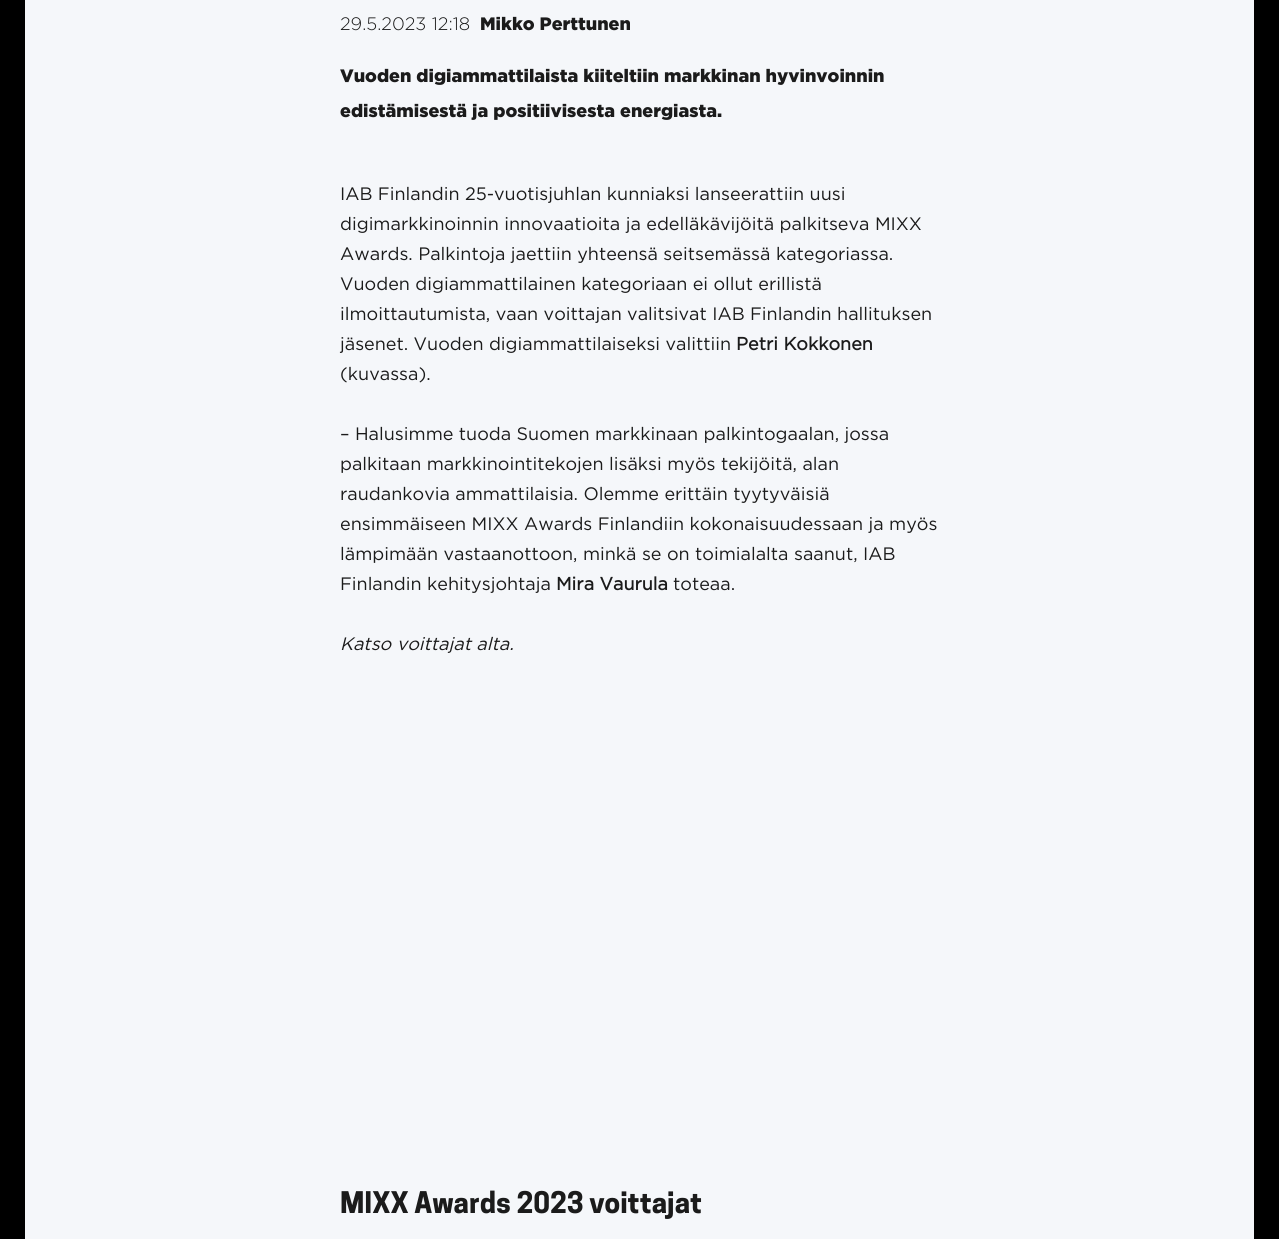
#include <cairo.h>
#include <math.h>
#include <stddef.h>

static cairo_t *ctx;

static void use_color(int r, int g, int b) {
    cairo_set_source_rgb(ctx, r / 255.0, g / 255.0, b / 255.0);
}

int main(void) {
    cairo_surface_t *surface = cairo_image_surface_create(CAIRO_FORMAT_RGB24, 1279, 1239);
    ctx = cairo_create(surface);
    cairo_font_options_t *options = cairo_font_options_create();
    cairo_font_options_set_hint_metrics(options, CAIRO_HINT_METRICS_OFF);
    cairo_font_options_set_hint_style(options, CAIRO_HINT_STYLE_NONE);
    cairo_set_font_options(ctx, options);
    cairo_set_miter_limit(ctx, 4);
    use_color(245, 247, 250);
    cairo_paint(ctx);
    cairo_rectangle(ctx, 12.5, -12.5, 1254, 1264);
    use_color(0, 0, 0);
    cairo_set_line_width(ctx, 25);
    cairo_stroke(ctx);
    cairo_select_font_face(ctx, "Gotham Light", CAIRO_FONT_SLANT_NORMAL, CAIRO_FONT_WEIGHT_NORMAL);
    cairo_set_font_size(ctx, 18);
    use_color(27, 27, 27);
    cairo_move_to(ctx, 340, 30);
    cairo_show_text(ctx, "29.5.2023 12:18");
    cairo_select_font_face(ctx, "Gotham Black", CAIRO_FONT_SLANT_NORMAL, CAIRO_FONT_WEIGHT_NORMAL);
    cairo_move_to(ctx, 480, 30);
    cairo_show_text(ctx, "Mikko Perttunen");
    cairo_move_to(ctx, 340, 82);
    cairo_show_text(ctx, "Vuoden digiammattilaista kiiteltiin markkinan hyvinvoinnin");
    cairo_move_to(ctx, 340, 117);
    cairo_show_text(ctx, "edistämisestä ja positiivisesta energiasta.");
    cairo_select_font_face(ctx, "Gotham", CAIRO_FONT_SLANT_NORMAL, CAIRO_FONT_WEIGHT_NORMAL);
    cairo_move_to(ctx, 340, 200);
    cairo_show_text(ctx, "IAB Finlandin 25-vuotisjuhlan kunniaksi lanseerattiin uusi");
    cairo_move_to(ctx, 340, 230);
    cairo_show_text(ctx, "digimarkkinoinnin innovaatioita ja edelläkävijöitä palkitseva MIXX");
    cairo_move_to(ctx, 340, 260);
    cairo_show_text(ctx, "Awards. Palkintoja jaettiin yhteensä seitsemässä kategoriassa.");
    cairo_move_to(ctx, 340, 290);
    cairo_show_text(ctx, "Vuoden digiammattilainen kategoriaan ei ollut erillistä");
    cairo_move_to(ctx, 340, 320);
    cairo_show_text(ctx, "ilmoittautumista, vaan voittajan valitsivat IAB Finlandin hallituksen");
    cairo_move_to(ctx, 340, 350);
    cairo_show_text(ctx, "jäsenet. Vuoden digiammattilaiseksi valittiin");
    cairo_select_font_face(ctx, "Gotham", CAIRO_FONT_SLANT_NORMAL, CAIRO_FONT_WEIGHT_BOLD);
    cairo_move_to(ctx, 736, 350);
    cairo_show_text(ctx, "Petri Kokkonen");
    cairo_select_font_face(ctx, "Gotham", CAIRO_FONT_SLANT_NORMAL, CAIRO_FONT_WEIGHT_NORMAL);
    cairo_move_to(ctx, 340, 380);
    cairo_show_text(ctx, "(kuvassa).");
    cairo_move_to(ctx, 340, 440);
    cairo_show_text(ctx, "– Halusimme tuoda Suomen markkinaan palkintogaalan, jossa");
    cairo_move_to(ctx, 340, 470);
    cairo_show_text(ctx, "palkitaan markkinointitekojen lisäksi myös tekijöitä, alan");
    cairo_move_to(ctx, 340, 500);
    cairo_show_text(ctx, "raudankovia ammattilaisia. Olemme erittäin tyytyväisiä");
    cairo_move_to(ctx, 340, 530);
    cairo_show_text(ctx, "ensimmäiseen MIXX Awards Finlandiin kokonaisuudessaan ja myös");
    cairo_move_to(ctx, 340, 560);
    cairo_show_text(ctx, "lämpimään vastaanottoon, minkä se on toimialalta saanut, IAB");
    cairo_move_to(ctx, 340, 590);
    cairo_show_text(ctx, "Finlandin kehitysjohtaja");
    cairo_select_font_face(ctx, "Gotham", CAIRO_FONT_SLANT_NORMAL, CAIRO_FONT_WEIGHT_BOLD);
    cairo_move_to(ctx, 556, 590);
    cairo_show_text(ctx, "Mira Vaurula");
    cairo_select_font_face(ctx, "Gotham", CAIRO_FONT_SLANT_NORMAL, CAIRO_FONT_WEIGHT_NORMAL);
    cairo_move_to(ctx, 673, 590);
    cairo_show_text(ctx, "toteaa.");
    cairo_select_font_face(ctx, "Gotham", CAIRO_FONT_SLANT_ITALIC, CAIRO_FONT_WEIGHT_NORMAL);
    cairo_move_to(ctx, 340, 650);
    cairo_show_text(ctx, "Katso voittajat alta.");
    cairo_select_font_face(ctx, "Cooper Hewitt", CAIRO_FONT_SLANT_NORMAL, CAIRO_FONT_WEIGHT_BOLD);
    cairo_set_font_size(ctx, 28);
    cairo_move_to(ctx, 340, 1213);
    cairo_show_text(ctx, "MIXX Awards 2023 voittajat");
    cairo_surface_write_to_png(surface, "result.png");
    cairo_font_options_destroy(options);
    cairo_destroy(ctx);
    cairo_surface_destroy(surface);
    return 0;
}
